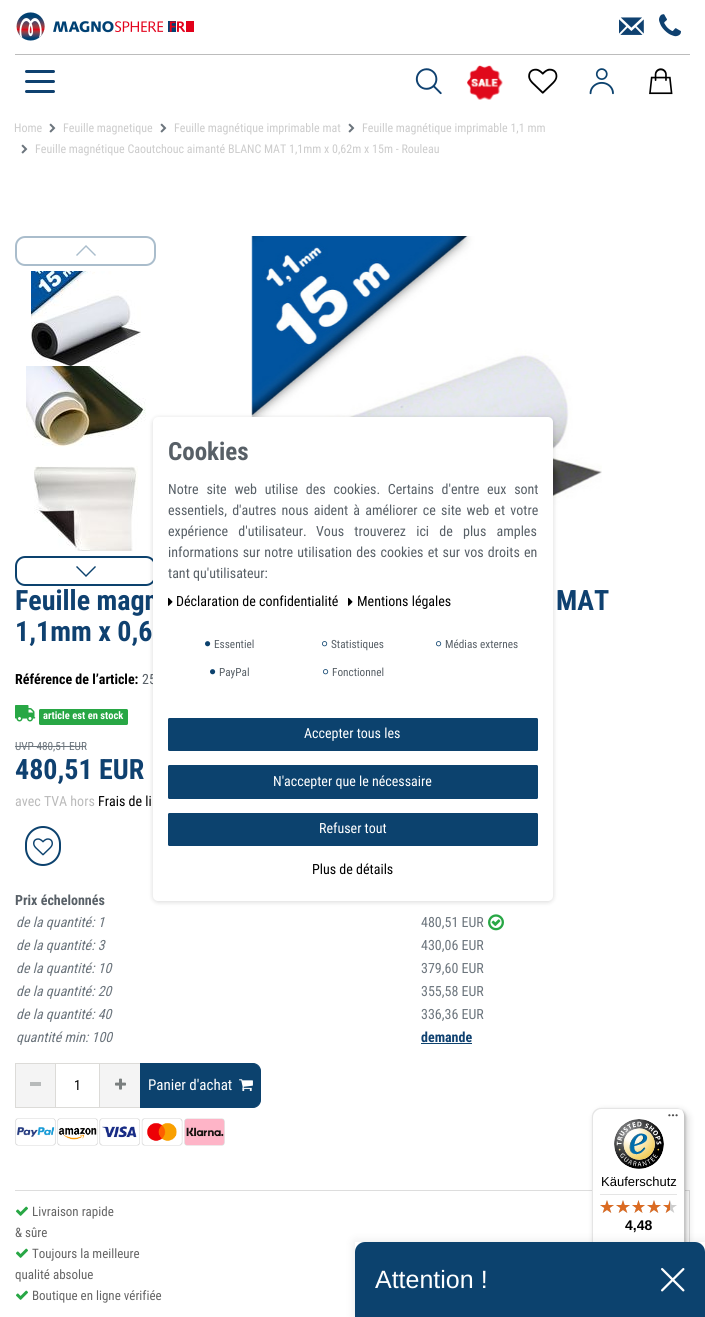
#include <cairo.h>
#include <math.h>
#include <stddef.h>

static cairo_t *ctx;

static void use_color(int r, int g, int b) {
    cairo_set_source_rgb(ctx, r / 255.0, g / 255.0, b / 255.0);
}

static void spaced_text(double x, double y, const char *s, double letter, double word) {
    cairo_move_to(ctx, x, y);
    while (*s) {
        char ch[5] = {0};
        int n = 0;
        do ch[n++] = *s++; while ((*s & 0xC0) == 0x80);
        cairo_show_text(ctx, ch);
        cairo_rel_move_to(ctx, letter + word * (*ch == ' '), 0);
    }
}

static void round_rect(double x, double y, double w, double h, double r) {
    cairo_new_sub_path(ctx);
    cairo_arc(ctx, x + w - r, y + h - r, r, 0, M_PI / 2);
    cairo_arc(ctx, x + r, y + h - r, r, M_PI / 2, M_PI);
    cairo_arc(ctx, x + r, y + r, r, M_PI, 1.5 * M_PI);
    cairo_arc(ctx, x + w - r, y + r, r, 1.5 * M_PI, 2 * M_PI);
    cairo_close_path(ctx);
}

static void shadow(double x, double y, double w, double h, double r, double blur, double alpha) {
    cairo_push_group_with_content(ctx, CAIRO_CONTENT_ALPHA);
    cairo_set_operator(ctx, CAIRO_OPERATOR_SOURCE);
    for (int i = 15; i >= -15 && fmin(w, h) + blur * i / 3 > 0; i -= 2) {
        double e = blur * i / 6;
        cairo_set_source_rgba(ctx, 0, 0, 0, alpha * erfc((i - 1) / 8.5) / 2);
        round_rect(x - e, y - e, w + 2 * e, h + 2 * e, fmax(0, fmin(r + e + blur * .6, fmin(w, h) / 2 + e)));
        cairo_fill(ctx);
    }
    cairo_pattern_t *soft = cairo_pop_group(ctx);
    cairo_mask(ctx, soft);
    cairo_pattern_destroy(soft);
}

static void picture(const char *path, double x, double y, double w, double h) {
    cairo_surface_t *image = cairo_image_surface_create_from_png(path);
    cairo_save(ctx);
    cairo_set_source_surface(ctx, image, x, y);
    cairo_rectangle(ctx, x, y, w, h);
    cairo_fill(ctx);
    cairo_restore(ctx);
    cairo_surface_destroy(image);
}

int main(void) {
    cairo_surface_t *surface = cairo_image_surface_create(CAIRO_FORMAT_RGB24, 705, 1317);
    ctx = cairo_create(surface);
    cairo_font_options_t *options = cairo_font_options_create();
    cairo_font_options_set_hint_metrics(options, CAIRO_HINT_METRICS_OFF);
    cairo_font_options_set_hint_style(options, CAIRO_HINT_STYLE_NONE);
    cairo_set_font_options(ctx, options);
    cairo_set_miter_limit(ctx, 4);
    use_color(255, 255, 255);
    cairo_paint(ctx);
    picture("img1.png", 16, 12, 178, 29);
    picture("img2.png", 619, 17, 25, 18);
    picture("img3.png", 659, 14, 22, 23);
    use_color(188, 188, 188);
    cairo_rectangle(ctx, 15, 54, 675, 1);
    cairo_fill(ctx);
    use_color(15, 65, 112);
    round_rect(25, 70, 30, 3, 1.5);
    cairo_fill(ctx);
    round_rect(25, 80, 30, 3, 1.5);
    cairo_fill(ctx);
    round_rect(25, 90, 30, 3, 1.5);
    cairo_fill(ctx);
    picture("img4.png", 415, 68, 27, 27);
    picture("img5.png", 467, 65, 36, 35);
    picture("img6.png", 528, 68, 30, 26);
    picture("img7.png", 589, 68, 25, 27);
    picture("img8.png", 649, 68, 24, 27);
    cairo_select_font_face(ctx, "Roboto Condensed", CAIRO_FONT_SLANT_NORMAL, CAIRO_FONT_WEIGHT_NORMAL);
    cairo_set_font_size(ctx, 12);
    use_color(204, 204, 204);
    cairo_move_to(ctx, 14, 132);
    cairo_show_text(ctx, "Home");
    picture("img9.png", 49, 123, 7, 10);
    cairo_move_to(ctx, 63, 132);
    cairo_show_text(ctx, "Feuille magnetique");
    picture("img9.png", 160, 123, 7, 10);
    cairo_move_to(ctx, 174, 132);
    cairo_show_text(ctx, "Feuille magnétique imprimable mat");
    picture("img9.png", 348, 123, 7, 10);
    cairo_move_to(ctx, 362, 132);
    cairo_show_text(ctx, "Feuille magnétique imprimable 1,1 mm");
    picture("img9.png", 21, 144, 7, 10);
    cairo_move_to(ctx, 35, 153);
    cairo_show_text(ctx, "Feuille magnétique Caoutchouc aimanté BLANC MAT 1,1mm x 0,62m x 15m - Rouleau");
    use_color(170, 189, 204);
    cairo_new_path(ctx);
    cairo_move_to(ctx, 86, 245);
    cairo_line_to(ctx, 96, 255);
    cairo_line_to(ctx, 95, 256);
    cairo_line_to(ctx, 86, 247);
    cairo_line_to(ctx, 77, 256);
    cairo_line_to(ctx, 76, 255);
    cairo_close_path(ctx);
    cairo_fill(ctx);
    round_rect(16, 237, 139, 28, 9);
    cairo_stroke(ctx);
    picture("img10.png", 31, 271, 110, 95);
    picture("img11.png", 26, 366, 120, 81);
    picture("img12.png", 34, 466, 104, 85);
    use_color(12, 66, 110);
    cairo_new_path(ctx);
    cairo_move_to(ctx, 86, 577);
    cairo_line_to(ctx, 76, 567);
    cairo_line_to(ctx, 77, 566);
    cairo_line_to(ctx, 86, 575);
    cairo_line_to(ctx, 95, 566);
    cairo_line_to(ctx, 96, 567);
    cairo_close_path(ctx);
    cairo_fill(ctx);
    round_rect(16, 557, 139, 28, 9);
    cairo_stroke(ctx);
    picture("img13.png", 251, 236, 351, 346);
    cairo_select_font_face(ctx, "Roboto Condensed", CAIRO_FONT_SLANT_NORMAL, CAIRO_FONT_WEIGHT_BOLD);
    cairo_set_font_size(ctx, 28);
    use_color(15, 65, 112);
    cairo_move_to(ctx, 15, 610);
    cairo_show_text(ctx, "Feuille magn");
    cairo_move_to(ctx, 556, 610);
    cairo_show_text(ctx, "MAT");
    cairo_move_to(ctx, 15, 641);
    cairo_show_text(ctx, "1,1mm x 0,6");
    cairo_set_font_size(ctx, 14);
    use_color(0, 0, 0);
    cairo_move_to(ctx, 15, 684);
    cairo_show_text(ctx, "Référence de l’article:");
    cairo_select_font_face(ctx, "Roboto Condensed", CAIRO_FONT_SLANT_NORMAL, CAIRO_FONT_WEIGHT_NORMAL);
    use_color(88, 96, 103);
    cairo_move_to(ctx, 142, 684);
    cairo_show_text(ctx, "25");
    picture("img14.png", 15, 705, 21, 17);
    use_color(40, 167, 69);
    round_rect(39, 709, 89, 16, 1.5);
    cairo_fill(ctx);
    cairo_select_font_face(ctx, "Roboto Condensed", CAIRO_FONT_SLANT_NORMAL, CAIRO_FONT_WEIGHT_BOLD);
    cairo_set_font_size(ctx, 10.5);
    use_color(255, 255, 255);
    cairo_move_to(ctx, 43, 719);
    cairo_show_text(ctx, "article est en stock");
    cairo_select_font_face(ctx, "Roboto Condensed", CAIRO_FONT_SLANT_NORMAL, CAIRO_FONT_WEIGHT_NORMAL);
    cairo_set_font_size(ctx, 11.25);
    use_color(108, 117, 125);
    cairo_move_to(ctx, 15, 750);
    cairo_show_text(ctx, "UVP 480,51 EUR");
    cairo_rectangle(ctx, 15, 746, 71, 1);
    cairo_fill(ctx);
    cairo_select_font_face(ctx, "Roboto Condensed", CAIRO_FONT_SLANT_NORMAL, CAIRO_FONT_WEIGHT_BOLD);
    cairo_set_font_size(ctx, 28);
    use_color(15, 65, 112);
    cairo_move_to(ctx, 15, 779);
    cairo_show_text(ctx, "480,51 EUR");
    cairo_select_font_face(ctx, "Roboto Condensed", CAIRO_FONT_SLANT_NORMAL, CAIRO_FONT_WEIGHT_NORMAL);
    cairo_set_font_size(ctx, 14);
    use_color(187, 187, 187);
    cairo_move_to(ctx, 15, 806);
    cairo_show_text(ctx, "avec TVA hors");
    use_color(0, 0, 0);
    cairo_move_to(ctx, 98, 806);
    cairo_show_text(ctx, "Frais de li");
    round_rect(26, 827, 34, 38, 17);
    use_color(12, 66, 110);
    cairo_stroke(ctx);
    picture("img15.png", 33, 838, 20, 18);
    cairo_select_font_face(ctx, "Roboto Condensed", CAIRO_FONT_SLANT_NORMAL, CAIRO_FONT_WEIGHT_BOLD);
    use_color(88, 96, 103);
    cairo_move_to(ctx, 15, 905);
    cairo_show_text(ctx, "Prix échelonnés");
    cairo_select_font_face(ctx, "Roboto Condensed", CAIRO_FONT_SLANT_ITALIC, CAIRO_FONT_WEIGHT_NORMAL);
    use_color(108, 117, 125);
    cairo_move_to(ctx, 16, 927);
    cairo_show_text(ctx, "de la quantité: 1");
    cairo_select_font_face(ctx, "Roboto Condensed", CAIRO_FONT_SLANT_NORMAL, CAIRO_FONT_WEIGHT_NORMAL);
    cairo_move_to(ctx, 421, 927);
    cairo_show_text(ctx, "480,51 EUR");
    picture("img16.png", 488, 914, 16, 17);
    cairo_select_font_face(ctx, "Roboto Condensed", CAIRO_FONT_SLANT_ITALIC, CAIRO_FONT_WEIGHT_NORMAL);
    cairo_move_to(ctx, 16, 950);
    cairo_show_text(ctx, "de la quantité: 3");
    cairo_select_font_face(ctx, "Roboto Condensed", CAIRO_FONT_SLANT_NORMAL, CAIRO_FONT_WEIGHT_NORMAL);
    cairo_move_to(ctx, 421, 950);
    cairo_show_text(ctx, "430,06 EUR");
    cairo_select_font_face(ctx, "Roboto Condensed", CAIRO_FONT_SLANT_ITALIC, CAIRO_FONT_WEIGHT_NORMAL);
    cairo_move_to(ctx, 16, 973);
    cairo_show_text(ctx, "de la quantité: 10");
    cairo_select_font_face(ctx, "Roboto Condensed", CAIRO_FONT_SLANT_NORMAL, CAIRO_FONT_WEIGHT_NORMAL);
    cairo_move_to(ctx, 421, 973);
    cairo_show_text(ctx, "379,60 EUR");
    cairo_select_font_face(ctx, "Roboto Condensed", CAIRO_FONT_SLANT_ITALIC, CAIRO_FONT_WEIGHT_NORMAL);
    cairo_move_to(ctx, 16, 996);
    cairo_show_text(ctx, "de la quantité: 20");
    cairo_select_font_face(ctx, "Roboto Condensed", CAIRO_FONT_SLANT_NORMAL, CAIRO_FONT_WEIGHT_NORMAL);
    cairo_move_to(ctx, 421, 996);
    cairo_show_text(ctx, "355,58 EUR");
    cairo_select_font_face(ctx, "Roboto Condensed", CAIRO_FONT_SLANT_ITALIC, CAIRO_FONT_WEIGHT_NORMAL);
    cairo_move_to(ctx, 16, 1019);
    cairo_show_text(ctx, "de la quantité: 40");
    cairo_select_font_face(ctx, "Roboto Condensed", CAIRO_FONT_SLANT_NORMAL, CAIRO_FONT_WEIGHT_NORMAL);
    cairo_move_to(ctx, 421, 1019);
    cairo_show_text(ctx, "336,36 EUR");
    cairo_select_font_face(ctx, "Roboto Condensed", CAIRO_FONT_SLANT_ITALIC, CAIRO_FONT_WEIGHT_NORMAL);
    cairo_move_to(ctx, 16, 1042);
    cairo_show_text(ctx, "quantité min: 100");
    cairo_select_font_face(ctx, "Roboto Condensed", CAIRO_FONT_SLANT_NORMAL, CAIRO_FONT_WEIGHT_BOLD);
    use_color(15, 65, 112);
    cairo_move_to(ctx, 421, 1042);
    cairo_show_text(ctx, "demande");
    use_color(12, 66, 110);
    cairo_rectangle(ctx, 421, 1043, 51, 1);
    cairo_fill(ctx);
    use_color(244, 244, 244);
    cairo_rectangle(ctx, 16, 1064, 39, 43);
    cairo_fill(ctx);
    use_color(220, 219, 216);
    cairo_rectangle(ctx, 15, 1063, 40, 1);
    cairo_fill(ctx);
    cairo_rectangle(ctx, 15, 1107, 40, 1);
    cairo_fill(ctx);
    cairo_rectangle(ctx, 15, 1063, 1, 45);
    cairo_fill(ctx);
    use_color(183, 186, 186);
    cairo_rectangle(ctx, 30, 1082, 11, 4);
    cairo_fill(ctx);
    cairo_rectangle(ctx, 55.5, 1063.5, 44, 44);
    use_color(220, 219, 216);
    cairo_set_line_width(ctx, 1);
    cairo_stroke(ctx);
    cairo_select_font_face(ctx, "Roboto Condensed", CAIRO_FONT_SLANT_NORMAL, CAIRO_FONT_WEIGHT_NORMAL);
    use_color(0, 0, 0);
    cairo_move_to(ctx, 74, 1090);
    cairo_show_text(ctx, "1");
    use_color(244, 244, 244);
    cairo_rectangle(ctx, 100, 1064, 40, 43);
    cairo_fill(ctx);
    use_color(220, 219, 216);
    cairo_rectangle(ctx, 100, 1063, 40, 1);
    cairo_fill(ctx);
    cairo_rectangle(ctx, 100, 1107, 40, 1);
    cairo_fill(ctx);
    picture("img17.png", 115, 1078, 11, 12);
    use_color(12, 66, 110);
    cairo_new_path(ctx);
    cairo_move_to(ctx, 140.5, 1063.5);
    cairo_line_to(ctx, 253, 1063.5);
    cairo_curve_to(ctx, 257, 1063.5, 260.5, 1067, 260.5, 1071);
    cairo_line_to(ctx, 260.5, 1100);
    cairo_curve_to(ctx, 260.5, 1104, 257, 1107.5, 253, 1107.5);
    cairo_line_to(ctx, 140.5, 1107.5);
    cairo_close_path(ctx);
    cairo_fill_preserve(ctx);
    cairo_stroke(ctx);
    cairo_set_font_size(ctx, 15);
    use_color(255, 255, 255);
    cairo_move_to(ctx, 148, 1090);
    cairo_show_text(ctx, "Panier d'achat");
    picture("img18.png", 239, 1079, 14, 13);
    picture("img19.png", 15, 1118, 210, 28);
    use_color(221, 221, 221);
    cairo_rectangle(ctx, 15, 1190, 675, 1);
    cairo_fill(ctx);
    cairo_rectangle(ctx, 689, 1191, 1, 51);
    cairo_fill(ctx);
    picture("img20.png", 16, 1206, 12, 10);
    cairo_set_font_size(ctx, 13);
    use_color(101, 101, 101);
    cairo_move_to(ctx, 32, 1216);
    cairo_show_text(ctx, "Livraison rapide");
    cairo_move_to(ctx, 15, 1237);
    cairo_show_text(ctx, "& sûre");
    picture("img20.png", 16, 1248, 12, 10);
    cairo_move_to(ctx, 32, 1258);
    cairo_show_text(ctx, "Toujours la meilleure");
    cairo_move_to(ctx, 15, 1279);
    cairo_show_text(ctx, "qualité absolue");
    picture("img20.png", 16, 1290, 12, 10);
    cairo_move_to(ctx, 32, 1300);
    cairo_show_text(ctx, "Boutique en ligne vérifiée");
    use_color(0, 0, 0);
    shadow(153, 418, 400, 484, 5, 2.5, 0.15);
    use_color(255, 255, 255);
    round_rect(153, 417, 400, 484, 5);
    cairo_fill(ctx);
    cairo_select_font_face(ctx, "Roboto Condensed", CAIRO_FONT_SLANT_NORMAL, CAIRO_FONT_WEIGHT_BOLD);
    cairo_set_font_size(ctx, 25);
    use_color(88, 96, 103);
    cairo_move_to(ctx, 168, 460);
    cairo_show_text(ctx, "Cookies");
    cairo_select_font_face(ctx, "Roboto Condensed", CAIRO_FONT_SLANT_NORMAL, CAIRO_FONT_WEIGHT_NORMAL);
    cairo_set_font_size(ctx, 14);
    spaced_text(168, 494, "Notre site web utilise des cookies. Certains d'entre eux sont", 0, 4.5);
    spaced_text(168, 515, "essentiels, d'autres nous aident à améliorer ce site web et votre", 0, 2);
    spaced_text(168, 536, "expérience d'utilisateur.", 0, 7);
    spaced_text(316, 536, "Vous trouverez ici de plus amples", 0, 7);
    spaced_text(168, 557, "informations sur notre utilisation des cookies et sur vos droits en", 0, 1);
    cairo_move_to(ctx, 168, 578);
    cairo_show_text(ctx, "tant qu'utilisateur:");
    picture("img21.png", 168, 597, 5, 9);
    use_color(0, 0, 0);
    cairo_move_to(ctx, 176, 606);
    cairo_show_text(ctx, "Déclaration de confidentialité");
    picture("img21.png", 348, 597, 5, 9);
    cairo_move_to(ctx, 357, 606);
    cairo_show_text(ctx, "Mentions légales");
    picture("img22.png", 205, 641, 6, 6);
    cairo_set_font_size(ctx, 11.25);
    use_color(88, 96, 103);
    cairo_move_to(ctx, 214, 648);
    cairo_show_text(ctx, "Essentiel");
    picture("img23.png", 322, 641, 6, 6);
    cairo_move_to(ctx, 331, 648);
    cairo_show_text(ctx, "Statistiques");
    picture("img23.png", 436, 641, 6, 6);
    cairo_move_to(ctx, 445, 648);
    cairo_show_text(ctx, "Médias externes");
    picture("img22.png", 210, 669, 6, 6);
    cairo_move_to(ctx, 219, 676);
    cairo_show_text(ctx, "PayPal");
    picture("img23.png", 323, 669, 6, 6);
    cairo_move_to(ctx, 332, 676);
    cairo_show_text(ctx, "Fonctionnel");
    use_color(12, 66, 110);
    round_rect(168.5, 718.5, 369, 32, 1);
    cairo_fill_preserve(ctx);
    cairo_stroke(ctx);
    cairo_set_font_size(ctx, 14);
    use_color(255, 255, 255);
    cairo_move_to(ctx, 304, 738);
    cairo_show_text(ctx, "Accepter tous les");
    use_color(12, 66, 110);
    round_rect(168.5, 765.5, 369, 33, 1);
    cairo_fill_preserve(ctx);
    cairo_stroke(ctx);
    use_color(255, 255, 255);
    cairo_move_to(ctx, 273, 786);
    cairo_show_text(ctx, "N'accepter que le nécessaire");
    use_color(12, 66, 110);
    round_rect(168.5, 813.5, 369, 32, 1);
    cairo_fill_preserve(ctx);
    cairo_stroke(ctx);
    use_color(255, 255, 255);
    cairo_move_to(ctx, 319, 833);
    cairo_show_text(ctx, "Refuser tout");
    use_color(0, 0, 0);
    cairo_move_to(ctx, 312, 874);
    cairo_show_text(ctx, "Plus de détails");
    use_color(0, 0, 0);
    shadow(595, 1111, 93, 155, 8, 4, 0.15);
    shadow(593, 1109, 93, 155, 8, 1, 0.15);
    use_color(255, 255, 255);
    round_rect(592, 1108, 93, 155, 8);
    cairo_fill(ctx);
    use_color(229, 229, 229);
    cairo_new_path(ctx);
    cairo_move_to(ctx, 601, 1109);
    cairo_line_to(ctx, 678, 1109);
    cairo_curve_to(ctx, 680, 1109, 682, 1110, 684, 1112);
    cairo_curve_to(ctx, 682, 1110, 680, 1108, 677, 1108);
    cairo_line_to(ctx, 600, 1108);
    cairo_curve_to(ctx, 596, 1108, 592, 1112, 592, 1116);
    cairo_line_to(ctx, 592, 1255);
    cairo_curve_to(ctx, 592, 1258, 594, 1260, 596, 1262);
    cairo_curve_to(ctx, 594, 1260, 593, 1258, 593, 1256);
    cairo_line_to(ctx, 593, 1117);
    cairo_curve_to(ctx, 593, 1113, 597, 1109, 601, 1109);
    cairo_close_path(ctx);
    cairo_fill(ctx);
    use_color(204, 204, 204);
    cairo_new_path(ctx);
    cairo_move_to(ctx, 593, 1259);
    cairo_curve_to(ctx, 595, 1261, 597, 1263, 600, 1263);
    cairo_line_to(ctx, 677, 1263);
    cairo_curve_to(ctx, 681, 1263, 685, 1259, 685, 1255);
    cairo_line_to(ctx, 685, 1116);
    cairo_curve_to(ctx, 685, 1113, 683, 1111, 681, 1109);
    cairo_curve_to(ctx, 683, 1111, 684, 1113, 684, 1115);
    cairo_line_to(ctx, 684, 1254);
    cairo_curve_to(ctx, 684, 1258, 680, 1262, 676, 1262);
    cairo_line_to(ctx, 599, 1262);
    cairo_curve_to(ctx, 597, 1262, 595, 1261, 593, 1259);
    cairo_close_path(ctx);
    cairo_fill(ctx);
    cairo_set_source_rgba(ctx, 0.196, 0.196, 0.196, 0.2);
    cairo_new_path(ctx);
    cairo_move_to(ctx, 594, 1260);
    cairo_curve_to(ctx, 595, 1262, 598, 1263, 600, 1263);
    cairo_line_to(ctx, 677, 1263);
    cairo_curve_to(ctx, 681, 1263, 685, 1259, 685, 1255);
    cairo_line_to(ctx, 685, 1116);
    cairo_curve_to(ctx, 685, 1114, 684, 1111, 682, 1110);
    cairo_curve_to(ctx, 683, 1111, 684, 1113, 684, 1115);
    cairo_line_to(ctx, 684, 1254);
    cairo_curve_to(ctx, 684, 1259, 681, 1262, 676, 1262);
    cairo_line_to(ctx, 599, 1262);
    cairo_curve_to(ctx, 597, 1262, 595, 1261, 594, 1260);
    cairo_close_path(ctx);
    cairo_fill(ctx);
    cairo_set_source_rgba(ctx, 1, 1, 1, 0.3);
    cairo_new_path(ctx);
    cairo_move_to(ctx, 684, 1116);
    cairo_curve_to(ctx, 684, 1111, 681, 1108, 676, 1108);
    cairo_line_to(ctx, 677, 1108);
    cairo_curve_to(ctx, 681, 1108, 685, 1112, 685, 1116);
    cairo_line_to(ctx, 685, 1255);
    cairo_curve_to(ctx, 685, 1259, 681, 1263, 677, 1263);
    cairo_line_to(ctx, 600, 1263);
    cairo_curve_to(ctx, 596, 1263, 592, 1259, 592, 1255);
    cairo_line_to(ctx, 592, 1254);
    cairo_curve_to(ctx, 592, 1259, 595, 1262, 600, 1262);
    cairo_line_to(ctx, 676, 1262);
    cairo_curve_to(ctx, 681, 1262, 684, 1259, 684, 1254);
    cairo_close_path(ctx);
    cairo_fill(ctx);
    picture("img24.png", 668, 1114, 10, 3);
    picture("img25.png", 614, 1119, 50, 50);
    cairo_select_font_face(ctx, "Liberation Sans", CAIRO_FONT_SLANT_NORMAL, CAIRO_FONT_WEIGHT_NORMAL);
    cairo_set_font_size(ctx, 13);
    use_color(0, 0, 0);
    cairo_move_to(ctx, 601, 1186);
    cairo_show_text(ctx, "Käuferschutz");
    use_color(229, 229, 229);
    cairo_rectangle(ctx, 600, 1194, 77, 1);
    cairo_fill(ctx);
    picture("img26.png", 600, 1200, 14, 13);
    picture("img26.png", 616, 1200, 14, 13);
    picture("img27.png", 632, 1200, 13, 13);
    picture("img26.png", 647, 1200, 14, 13);
    picture("img26.png", 663, 1200, 14, 13);
    picture("img28.png", 600, 1200, 14, 13);
    picture("img28.png", 616, 1200, 14, 13);
    picture("img29.png", 632, 1200, 13, 13);
    picture("img28.png", 647, 1200, 14, 13);
    picture("img30.png", 663, 1200, 7, 13);
    cairo_select_font_face(ctx, "Liberation Sans", CAIRO_FONT_SLANT_NORMAL, CAIRO_FONT_WEIGHT_BOLD);
    cairo_set_font_size(ctx, 14);
    use_color(0, 0, 0);
    cairo_move_to(ctx, 625, 1230);
    cairo_show_text(ctx, "4,48");
    cairo_save(ctx);
    cairo_set_fill_rule(ctx, CAIRO_FILL_RULE_EVEN_ODD);
    cairo_new_path(ctx);
    cairo_move_to(ctx, 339, 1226);
    cairo_line_to(ctx, 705, 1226);
    cairo_line_to(ctx, 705, 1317);
    cairo_line_to(ctx, 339, 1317);
    cairo_close_path(ctx);
    cairo_move_to(ctx, 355, 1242);
    cairo_line_to(ctx, 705, 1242);
    cairo_line_to(ctx, 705, 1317);
    cairo_line_to(ctx, 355, 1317);
    cairo_close_path(ctx);
    cairo_clip(ctx);
    use_color(0, 0, 0);
    shadow(355, 1242, 350, 75, 0, 5, 0.1);
    cairo_restore(ctx);
    use_color(12, 66, 110);
    cairo_new_path(ctx);
    cairo_move_to(ctx, 365, 1242);
    cairo_line_to(ctx, 695, 1242);
    cairo_curve_to(ctx, 700.5, 1242, 705, 1246.5, 705, 1252);
    cairo_line_to(ctx, 705, 1317);
    cairo_line_to(ctx, 355, 1317);
    cairo_line_to(ctx, 355, 1252);
    cairo_curve_to(ctx, 355, 1246.5, 359.5, 1242, 365, 1242);
    cairo_close_path(ctx);
    cairo_fill(ctx);
    cairo_select_font_face(ctx, "Liberation Sans", CAIRO_FONT_SLANT_NORMAL, CAIRO_FONT_WEIGHT_NORMAL);
    cairo_set_font_size(ctx, 25);
    use_color(255, 255, 255);
    cairo_move_to(ctx, 375, 1288);
    cairo_show_text(ctx, "Attention !");
    picture("img31.png", 661, 1268, 24, 24);
    cairo_surface_write_to_png(surface, "result.png");
    cairo_font_options_destroy(options);
    cairo_destroy(ctx);
    cairo_surface_destroy(surface);
    return 0;
}
